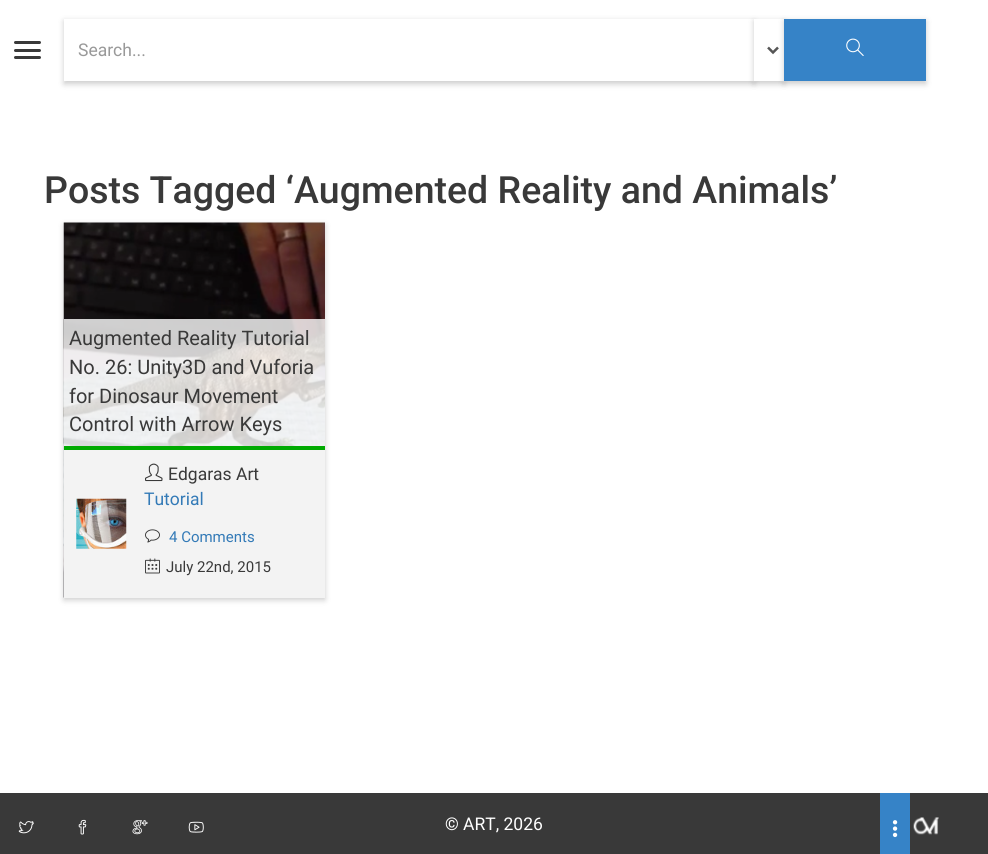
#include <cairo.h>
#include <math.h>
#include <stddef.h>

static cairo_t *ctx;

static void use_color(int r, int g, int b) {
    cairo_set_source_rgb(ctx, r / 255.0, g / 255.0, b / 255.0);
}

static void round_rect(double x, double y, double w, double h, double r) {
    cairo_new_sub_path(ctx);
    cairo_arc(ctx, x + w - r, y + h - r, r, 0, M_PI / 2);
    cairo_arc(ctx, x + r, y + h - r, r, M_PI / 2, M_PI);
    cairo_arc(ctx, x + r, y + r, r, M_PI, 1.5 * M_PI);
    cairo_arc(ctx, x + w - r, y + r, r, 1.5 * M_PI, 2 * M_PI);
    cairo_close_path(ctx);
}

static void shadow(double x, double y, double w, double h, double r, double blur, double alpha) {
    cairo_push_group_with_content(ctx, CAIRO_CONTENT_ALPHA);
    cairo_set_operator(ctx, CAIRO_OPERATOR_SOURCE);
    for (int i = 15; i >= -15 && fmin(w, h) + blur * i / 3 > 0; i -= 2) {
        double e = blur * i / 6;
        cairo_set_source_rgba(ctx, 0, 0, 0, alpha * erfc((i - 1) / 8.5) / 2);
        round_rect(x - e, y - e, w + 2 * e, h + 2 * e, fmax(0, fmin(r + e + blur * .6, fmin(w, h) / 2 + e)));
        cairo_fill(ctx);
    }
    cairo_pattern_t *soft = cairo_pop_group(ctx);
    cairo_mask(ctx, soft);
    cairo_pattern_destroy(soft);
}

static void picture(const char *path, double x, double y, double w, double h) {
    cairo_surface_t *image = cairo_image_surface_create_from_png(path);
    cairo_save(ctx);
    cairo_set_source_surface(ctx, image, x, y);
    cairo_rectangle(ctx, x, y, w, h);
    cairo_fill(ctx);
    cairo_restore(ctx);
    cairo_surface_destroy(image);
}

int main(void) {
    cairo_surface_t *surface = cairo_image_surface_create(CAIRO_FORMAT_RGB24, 988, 854);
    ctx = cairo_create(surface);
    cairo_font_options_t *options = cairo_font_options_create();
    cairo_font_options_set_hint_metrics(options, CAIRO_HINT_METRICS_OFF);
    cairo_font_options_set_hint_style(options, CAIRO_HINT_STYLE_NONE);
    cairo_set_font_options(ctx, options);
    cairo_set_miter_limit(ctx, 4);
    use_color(255, 255, 255);
    cairo_paint(ctx);
    use_color(57, 57, 57);
    round_rect(14, 41, 27, 3, 1.5);
    cairo_fill(ctx);
    round_rect(14, 49, 27, 3, 1.5);
    cairo_fill(ctx);
    round_rect(14, 56, 27, 3, 1.5);
    cairo_fill(ctx);
    use_color(0, 0, 0);
    shadow(64, 21, 690, 63, 0, 3, 0.2);
    use_color(255, 255, 255);
    cairo_rectangle(ctx, 64, 19, 690, 62);
    cairo_fill(ctx);
    cairo_select_font_face(ctx, "Roboto", CAIRO_FONT_SLANT_NORMAL, CAIRO_FONT_WEIGHT_NORMAL);
    cairo_set_font_size(ctx, 17.5);
    use_color(153, 153, 153);
    cairo_move_to(ctx, 78, 56);
    cairo_show_text(ctx, "Search...");
    use_color(0, 0, 0);
    shadow(754, 21, 30, 63, 0, 3, 0.2);
    use_color(255, 255, 255);
    cairo_rectangle(ctx, 754, 19, 30, 62);
    cairo_fill(ctx);
    cairo_new_path(ctx);
    cairo_move_to(ctx, 768, 47.5);
    cairo_line_to(ctx, 773, 52.5);
    cairo_line_to(ctx, 778, 47.5);
    use_color(85, 85, 85);
    cairo_set_line_width(ctx, 2.5);
    cairo_stroke(ctx);
    use_color(0, 0, 0);
    shadow(784, 21, 142, 63, 0, 3, 0.2);
    use_color(54, 131, 199);
    cairo_rectangle(ctx, 784, 19, 142, 62);
    cairo_fill(ctx);
    picture("img1.png", 846, 38, 18, 18);
    cairo_select_font_face(ctx, "Roboto Medium", CAIRO_FONT_SLANT_NORMAL, CAIRO_FONT_WEIGHT_NORMAL);
    cairo_set_font_size(ctx, 37.5);
    use_color(57, 57, 57);
    cairo_move_to(ctx, 44, 203);
    cairo_show_text(ctx, "Posts Tagged ‘Augmented Reality and Animals’");
    use_color(0, 0, 0);
    shadow(64, 225, 261, 375, 0, 3, 0.2);
    picture("img2.png", 63, 222, 262, 376);
    cairo_set_source_rgba(ctx, 1, 1, 1, 0.8);
    cairo_rectangle(ctx, 64, 319, 261, 127);
    cairo_fill(ctx);
    cairo_select_font_face(ctx, "Roboto", CAIRO_FONT_SLANT_NORMAL, CAIRO_FONT_WEIGHT_NORMAL);
    cairo_set_font_size(ctx, 20);
    use_color(57, 57, 57);
    cairo_move_to(ctx, 69, 345);
    cairo_show_text(ctx, "Augmented Reality Tutorial");
    cairo_move_to(ctx, 69, 374);
    cairo_show_text(ctx, "No. 26: Unity3D and Vuforia");
    cairo_move_to(ctx, 69, 403);
    cairo_show_text(ctx, "for Dinosaur Movement");
    cairo_move_to(ctx, 69, 431);
    cairo_show_text(ctx, "Control with Arrow Keys");
    use_color(243, 243, 243);
    cairo_rectangle(ctx, 64, 450, 261, 148);
    cairo_fill(ctx);
    use_color(0, 170, 1);
    cairo_rectangle(ctx, 64, 446, 261, 4);
    cairo_fill(ctx);
    picture("img3.png", 76, 498, 51, 51);
    picture("img4.png", 145, 463, 18, 19);
    cairo_set_font_size(ctx, 17.5);
    use_color(57, 57, 57);
    cairo_move_to(ctx, 168, 480);
    cairo_show_text(ctx, "Edgaras Art");
    use_color(51, 122, 183);
    cairo_move_to(ctx, 144, 505);
    cairo_show_text(ctx, "Tutorial");
    picture("img5.png", 145, 529, 15, 14);
    cairo_set_font_size(ctx, 15);
    cairo_move_to(ctx, 169, 542);
    cairo_show_text(ctx, "4 Comments");
    picture("img6.png", 145, 558, 15, 16);
    use_color(57, 57, 57);
    cairo_move_to(ctx, 166, 572);
    cairo_show_text(ctx, "July 22nd, 2015");
    cairo_rectangle(ctx, 0, 793, 988, 61);
    cairo_fill(ctx);
    picture("img7.png", 18, 821, 16, 13);
    picture("img8.png", 78, 819, 9, 16);
    picture("img9.png", 132, 820, 16, 15);
    picture("img10.png", 188, 821, 16, 12);
    cairo_set_font_size(ctx, 17.5);
    use_color(255, 255, 255);
    cairo_move_to(ctx, 445, 830);
    cairo_show_text(ctx, "© ART, 2026");
    use_color(54, 131, 199);
    cairo_rectangle(ctx, 880, 793, 30, 61);
    cairo_fill(ctx);
    picture("img11.png", 892, 820, 6, 18);
    picture("img12.png", 913, 817, 26, 18);
    cairo_surface_write_to_png(surface, "result.png");
    cairo_font_options_destroy(options);
    cairo_destroy(ctx);
    cairo_surface_destroy(surface);
    return 0;
}
